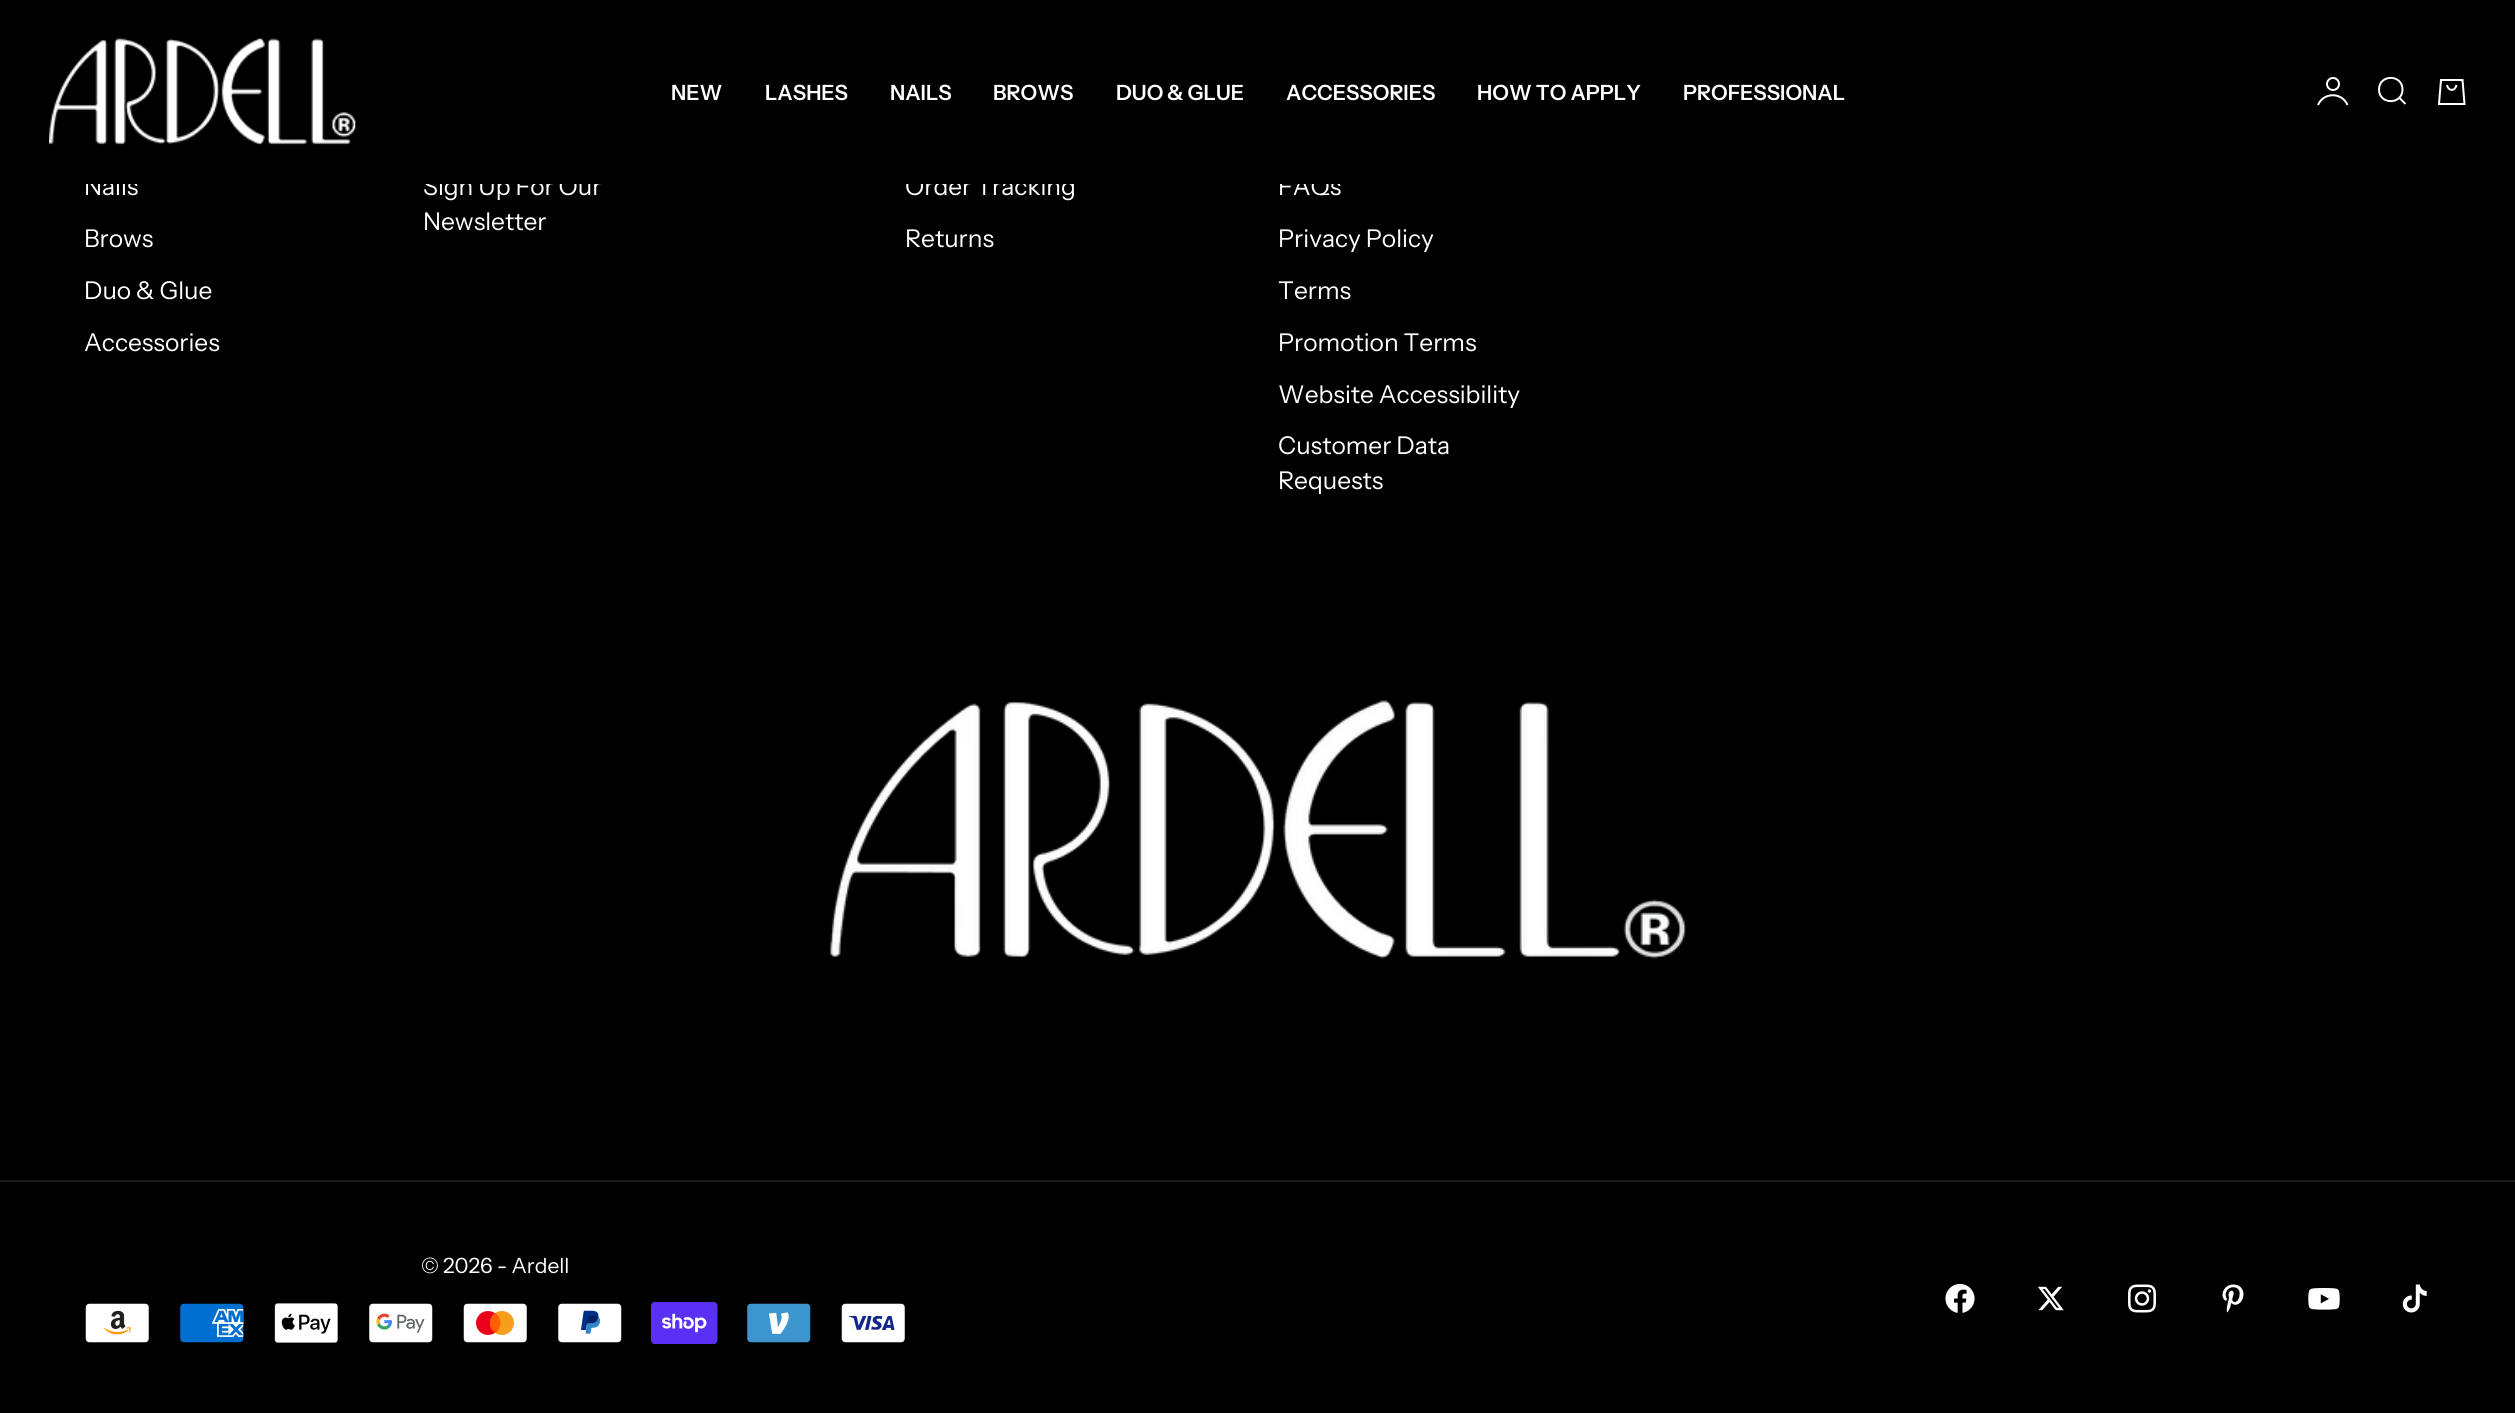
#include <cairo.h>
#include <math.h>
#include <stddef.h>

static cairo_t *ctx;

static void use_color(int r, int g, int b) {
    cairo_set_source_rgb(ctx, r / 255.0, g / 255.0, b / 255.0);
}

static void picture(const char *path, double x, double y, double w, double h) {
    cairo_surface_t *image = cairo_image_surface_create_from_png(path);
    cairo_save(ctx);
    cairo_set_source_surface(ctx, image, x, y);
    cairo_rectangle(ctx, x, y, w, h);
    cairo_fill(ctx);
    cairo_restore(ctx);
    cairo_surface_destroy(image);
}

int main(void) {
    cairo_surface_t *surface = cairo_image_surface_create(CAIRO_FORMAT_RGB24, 2515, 1413);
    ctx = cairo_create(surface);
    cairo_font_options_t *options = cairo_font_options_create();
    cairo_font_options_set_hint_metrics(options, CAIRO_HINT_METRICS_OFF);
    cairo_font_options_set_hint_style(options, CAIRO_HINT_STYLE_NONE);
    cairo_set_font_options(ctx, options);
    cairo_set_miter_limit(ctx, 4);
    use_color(0, 0, 0);
    cairo_paint(ctx);
    cairo_select_font_face(ctx, "Instrument Sans", CAIRO_FONT_SLANT_NORMAL, CAIRO_FONT_WEIGHT_NORMAL);
    cairo_set_font_size(ctx, 24.5);
    use_color(255, 255, 255);
    cairo_move_to(ctx, 84, 195);
    cairo_show_text(ctx, "Nails");
    cairo_move_to(ctx, 423, 195);
    cairo_show_text(ctx, "Sign Up For Our");
    cairo_move_to(ctx, 905, 195);
    cairo_show_text(ctx, "Order Tracking");
    cairo_move_to(ctx, 1278, 195);
    cairo_show_text(ctx, "FAQs");
    use_color(0, 0, 0);
    cairo_rectangle(ctx, 86, 176, 1254, 8);
    cairo_fill(ctx);
    picture("img1.png", 49, 38, 307, 107);
    cairo_select_font_face(ctx, "Instrument Sans SemiBold", CAIRO_FONT_SLANT_NORMAL, CAIRO_FONT_WEIGHT_NORMAL);
    cairo_set_font_size(ctx, 21);
    use_color(255, 255, 255);
    cairo_move_to(ctx, 671, 100);
    cairo_show_text(ctx, "NEW");
    cairo_move_to(ctx, 765, 100);
    cairo_show_text(ctx, "LASHES");
    cairo_move_to(ctx, 890, 100);
    cairo_show_text(ctx, "NAILS");
    cairo_move_to(ctx, 993, 100);
    cairo_show_text(ctx, "BROWS");
    cairo_move_to(ctx, 1116, 100);
    cairo_show_text(ctx, "DUO & GLUE");
    cairo_move_to(ctx, 1286, 100);
    cairo_show_text(ctx, "ACCESSORIES");
    cairo_move_to(ctx, 1477, 100);
    cairo_show_text(ctx, "HOW TO APPLY");
    cairo_move_to(ctx, 1683, 100);
    cairo_show_text(ctx, "PROFESSIONAL");
    cairo_new_path(ctx);
    cairo_move_to(ctx, 2347.5, 105);
    cairo_curve_to(ctx, 2342, 92, 2323.5, 92, 2318, 105);
    cairo_stroke(ctx);
    cairo_arc(ctx, 2333, 84, 6, 0, 2 * M_PI);
    cairo_stroke(ctx);
    cairo_new_path(ctx);
    cairo_move_to(ctx, 2379, 89.5);
    cairo_curve_to(ctx, 2379, 105, 2402.5, 105, 2402.5, 89.5);
    cairo_curve_to(ctx, 2402.5, 74, 2379, 74, 2379, 89.5);
    cairo_close_path(ctx);
    cairo_move_to(ctx, 2399.5, 98);
    cairo_line_to(ctx, 2405.5, 104);
    cairo_stroke(ctx);
    cairo_new_path(ctx);
    cairo_move_to(ctx, 2439, 104);
    cairo_line_to(ctx, 2441, 80);
    cairo_line_to(ctx, 2462.5, 80);
    cairo_line_to(ctx, 2464.5, 104);
    cairo_close_path(ctx);
    cairo_move_to(ctx, 2447, 85);
    cairo_curve_to(ctx, 2448.5, 91.5, 2455, 91.5, 2456.5, 85);
    cairo_stroke(ctx);
    cairo_select_font_face(ctx, "Instrument Sans", CAIRO_FONT_SLANT_NORMAL, CAIRO_FONT_WEIGHT_NORMAL);
    cairo_set_font_size(ctx, 24.5);
    cairo_move_to(ctx, 84, 247);
    cairo_show_text(ctx, "Brows");
    cairo_move_to(ctx, 84, 299);
    cairo_show_text(ctx, "Duo & Glue");
    cairo_move_to(ctx, 84, 351);
    cairo_show_text(ctx, "Accessories");
    cairo_move_to(ctx, 423, 230);
    cairo_show_text(ctx, "Newsletter");
    cairo_move_to(ctx, 905, 247);
    cairo_show_text(ctx, "Returns");
    cairo_move_to(ctx, 1278, 247);
    cairo_show_text(ctx, "Privacy Policy");
    cairo_move_to(ctx, 1278, 299);
    cairo_show_text(ctx, "Terms");
    cairo_move_to(ctx, 1278, 351);
    cairo_show_text(ctx, "Promotion Terms");
    cairo_move_to(ctx, 1278, 403);
    cairo_show_text(ctx, "Website Accessibility");
    cairo_move_to(ctx, 1278, 454);
    cairo_show_text(ctx, "Customer Data");
    cairo_move_to(ctx, 1278, 489);
    cairo_show_text(ctx, "Requests");
    picture("img2.png", 830, 700, 857, 259);
    use_color(26, 26, 26);
    cairo_rectangle(ctx, 0, 1180, 2515, 2);
    cairo_fill(ctx);
    cairo_set_font_size(ctx, 21);
    use_color(255, 255, 255);
    cairo_move_to(ctx, 421, 1273);
    cairo_show_text(ctx, "© 2026 - Ardell");
    picture("img3.png", 85, 1303, 64, 40);
    picture("img4.png", 180, 1303, 64, 40);
    picture("img5.png", 274, 1303, 64, 40);
    picture("img6.png", 369, 1303, 64, 40);
    picture("img7.png", 463, 1303, 64, 40);
    picture("img8.png", 558, 1303, 64, 40);
    picture("img9.png", 651, 1302, 67, 42);
    picture("img10.png", 747, 1303, 64, 40);
    picture("img11.png", 841, 1303, 64, 40);
    picture("img12.png", 1945, 1283, 30, 30);
    picture("img13.png", 2038, 1286, 26, 25);
    picture("img14.png", 2128, 1284, 28, 29);
    picture("img15.png", 2222, 1284, 22, 29);
    picture("img16.png", 2308, 1288, 32, 22);
    picture("img17.png", 2402, 1284, 25, 29);
    cairo_surface_write_to_png(surface, "result.png");
    cairo_font_options_destroy(options);
    cairo_destroy(ctx);
    cairo_surface_destroy(surface);
    return 0;
}
